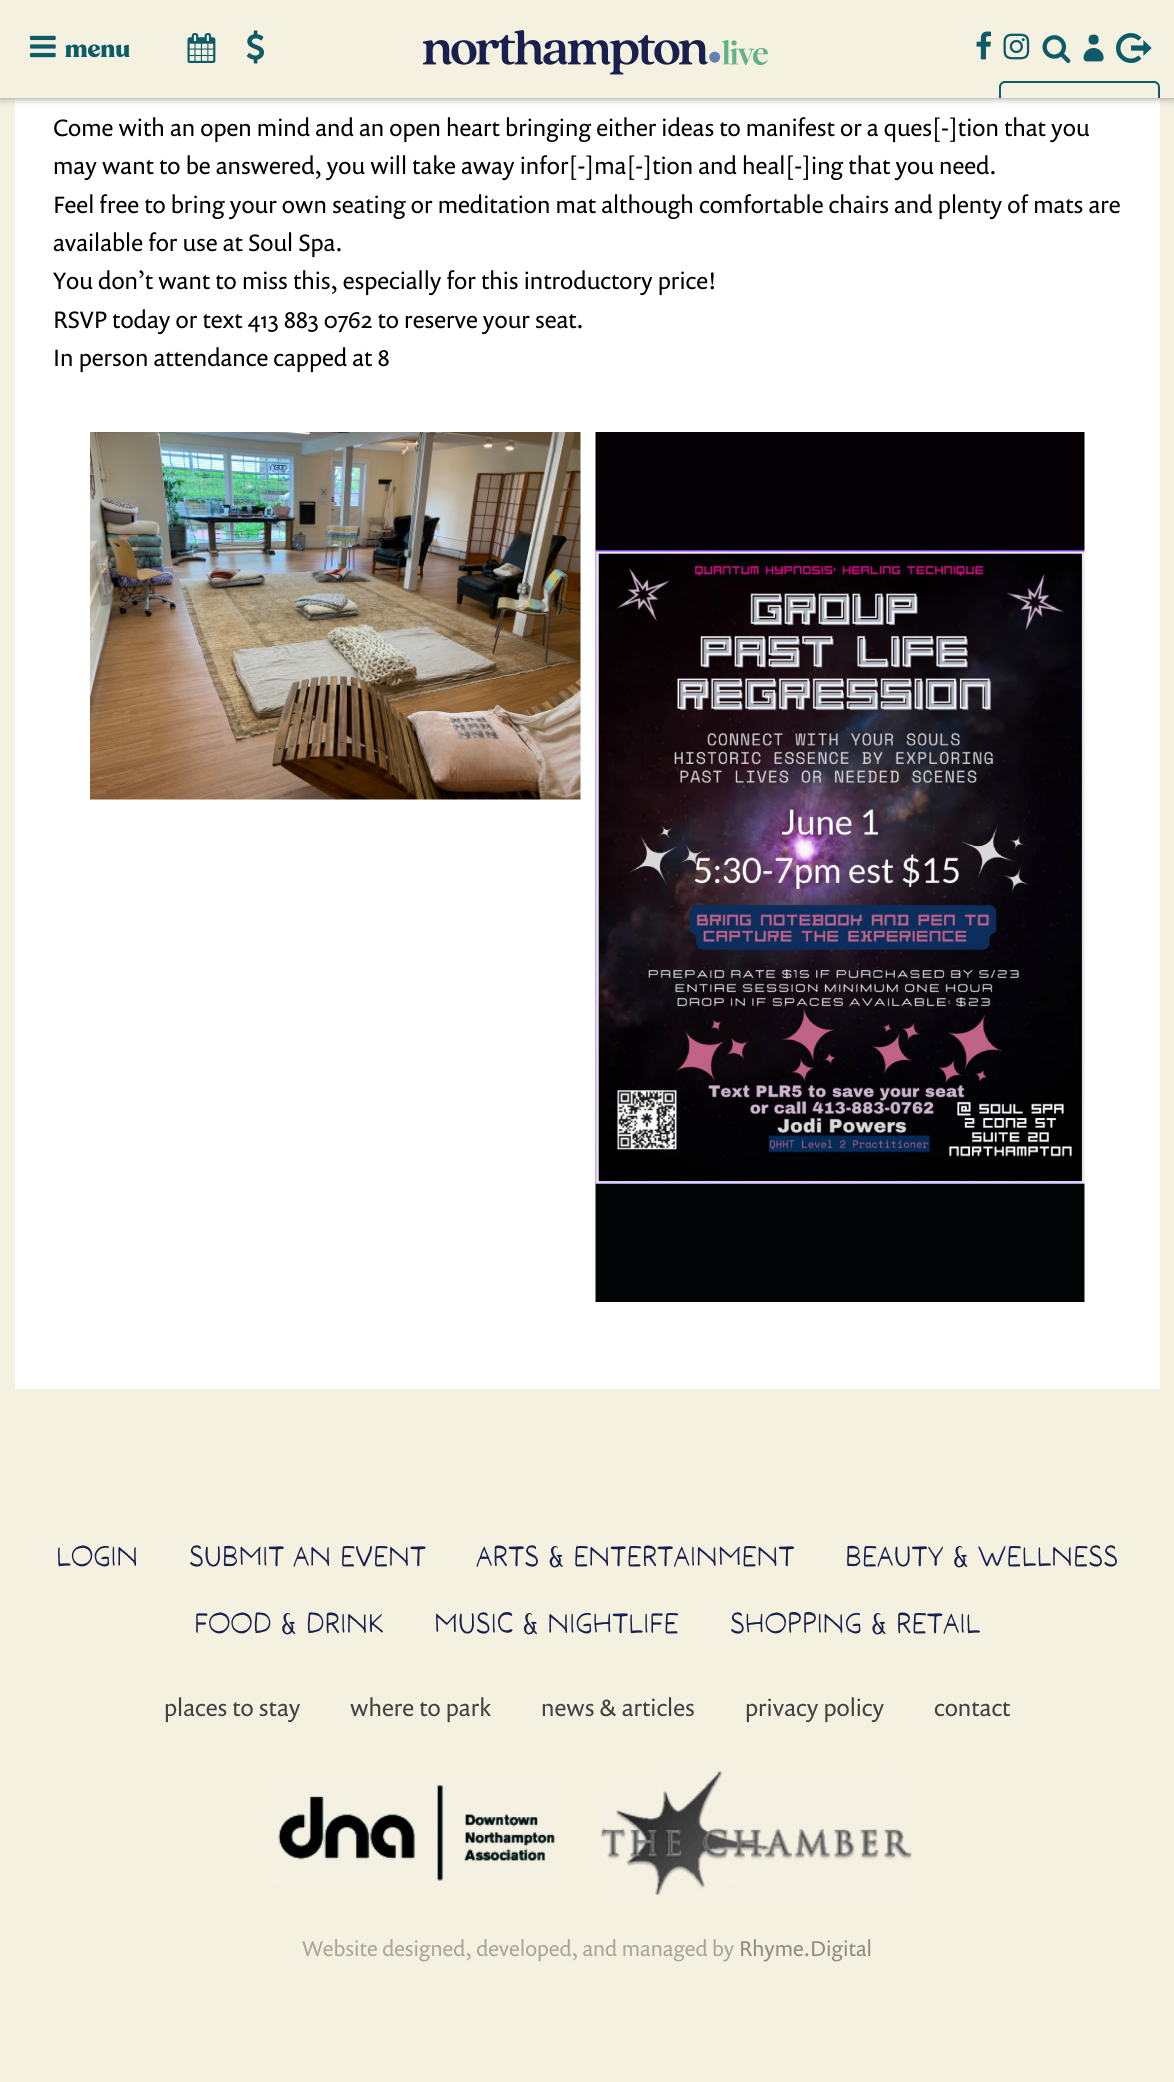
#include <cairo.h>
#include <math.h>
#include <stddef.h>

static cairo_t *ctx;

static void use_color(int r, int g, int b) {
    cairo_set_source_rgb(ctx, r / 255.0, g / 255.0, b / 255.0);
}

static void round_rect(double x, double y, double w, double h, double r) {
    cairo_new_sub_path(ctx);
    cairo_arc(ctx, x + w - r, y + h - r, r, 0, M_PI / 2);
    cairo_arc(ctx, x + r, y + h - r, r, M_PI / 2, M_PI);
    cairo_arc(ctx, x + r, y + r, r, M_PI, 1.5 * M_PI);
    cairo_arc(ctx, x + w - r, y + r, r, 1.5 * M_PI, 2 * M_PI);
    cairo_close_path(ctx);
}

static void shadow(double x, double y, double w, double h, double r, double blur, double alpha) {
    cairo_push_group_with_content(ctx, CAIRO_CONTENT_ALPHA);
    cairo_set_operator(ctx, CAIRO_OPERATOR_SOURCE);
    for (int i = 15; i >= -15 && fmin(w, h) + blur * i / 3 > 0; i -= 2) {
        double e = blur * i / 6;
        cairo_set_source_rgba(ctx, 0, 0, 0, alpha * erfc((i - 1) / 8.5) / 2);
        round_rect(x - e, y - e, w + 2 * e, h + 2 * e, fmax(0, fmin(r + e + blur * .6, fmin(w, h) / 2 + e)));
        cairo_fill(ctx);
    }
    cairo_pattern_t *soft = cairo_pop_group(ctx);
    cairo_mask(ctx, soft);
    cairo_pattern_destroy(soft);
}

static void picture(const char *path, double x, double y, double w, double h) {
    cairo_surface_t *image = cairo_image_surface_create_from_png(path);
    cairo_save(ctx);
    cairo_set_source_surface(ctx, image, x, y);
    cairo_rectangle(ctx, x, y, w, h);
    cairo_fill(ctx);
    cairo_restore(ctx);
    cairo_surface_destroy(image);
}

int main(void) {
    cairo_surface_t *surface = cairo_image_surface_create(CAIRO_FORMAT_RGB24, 1174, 2082);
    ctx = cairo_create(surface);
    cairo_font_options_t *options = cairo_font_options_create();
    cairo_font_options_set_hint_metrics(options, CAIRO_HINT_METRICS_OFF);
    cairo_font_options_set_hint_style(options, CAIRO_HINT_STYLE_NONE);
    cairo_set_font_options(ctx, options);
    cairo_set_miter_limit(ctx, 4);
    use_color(245, 241, 225);
    cairo_paint(ctx);
    use_color(255, 255, 255);
    cairo_rectangle(ctx, 15, 98, 1145, 1291);
    cairo_fill(ctx);
    cairo_save(ctx);
    cairo_set_fill_rule(ctx, CAIRO_FILL_RULE_EVEN_ODD);
    cairo_new_path(ctx);
    cairo_move_to(ctx, 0, 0);
    cairo_line_to(ctx, 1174, 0);
    cairo_line_to(ctx, 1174, 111);
    cairo_line_to(ctx, 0, 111);
    cairo_close_path(ctx);
    cairo_move_to(ctx, 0, 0);
    cairo_line_to(ctx, 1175, 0);
    cairo_line_to(ctx, 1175, 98);
    cairo_line_to(ctx, 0, 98);
    cairo_close_path(ctx);
    cairo_clip(ctx);
    use_color(142, 140, 131);
    shadow(0, 0, 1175, 98, 0, 4, 1);
    cairo_restore(ctx);
    picture("img1.png", 246, 30, 18, 34);
    picture("img2.png", 423, 30, 345, 45);
    picture("img3.png", 30, 35, 26, 23);
    cairo_select_font_face(ctx, "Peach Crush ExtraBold", CAIRO_FONT_SLANT_NORMAL, CAIRO_FONT_WEIGHT_NORMAL);
    cairo_set_font_size(ctx, 30);
    use_color(13, 91, 104);
    cairo_move_to(ctx, 65, 57);
    cairo_show_text(ctx, "menu");
    picture("img4.png", 187, 33, 29, 30);
    picture("img5.png", 976, 31, 16, 29);
    picture("img6.png", 1003, 33, 27, 27);
    picture("img7.png", 1042, 35, 29, 28);
    picture("img8.png", 1083, 34, 21, 28);
    picture("img9.png", 1116, 33, 36, 30);
    use_color(245, 241, 225);
    cairo_new_path(ctx);
    cairo_move_to(ctx, 1005, 81);
    cairo_line_to(ctx, 1154, 81);
    cairo_curve_to(ctx, 1157.5, 81, 1160, 83.5, 1160, 87);
    cairo_line_to(ctx, 1160, 98);
    cairo_line_to(ctx, 999, 98);
    cairo_line_to(ctx, 999, 87);
    cairo_curve_to(ctx, 999, 83.5, 1001.5, 81, 1005, 81);
    cairo_close_path(ctx);
    cairo_fill(ctx);
    cairo_select_font_face(ctx, "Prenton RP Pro", CAIRO_FONT_SLANT_NORMAL, CAIRO_FONT_WEIGHT_NORMAL);
    cairo_set_font_size(ctx, 24);
    use_color(0, 0, 0);
    cairo_move_to(ctx, 53, 136);
    cairo_show_text(ctx, "Come with an open mind and an open heart bringing either ideas to manifest or a ques[-]tion that you");
    cairo_save(ctx);
    cairo_rectangle(ctx, 0, 0, 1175, 98);
    cairo_clip(ctx);
    round_rect(1000, 82, 159, 45, 5);
    use_color(13, 91, 104);
    cairo_stroke(ctx);
    cairo_restore(ctx);
    cairo_move_to(ctx, 53, 174);
    cairo_show_text(ctx, "may want to be answered, you will take away infor[-]ma[-]tion and heal[-]ing that you need.");
    cairo_move_to(ctx, 53, 213);
    cairo_show_text(ctx, "Feel free to bring your own seating or meditation mat although comfortable chairs and plenty of mats are");
    cairo_move_to(ctx, 53, 251);
    cairo_show_text(ctx, "available for use at Soul Spa.");
    cairo_move_to(ctx, 53, 289);
    cairo_show_text(ctx, "You don’t want to miss this, especially for this introductory price!");
    cairo_move_to(ctx, 53, 328);
    cairo_show_text(ctx, "RSVP today or text 413 883 0762 to reserve your seat.");
    cairo_move_to(ctx, 53, 366);
    cairo_show_text(ctx, "In person attendance capped at 8");
    picture("img10.png", 90, 432, 491, 368);
    picture("img11.png", 595, 432, 490, 870);
    cairo_select_font_face(ctx, "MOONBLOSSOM", CAIRO_FONT_SLANT_NORMAL, CAIRO_FONT_WEIGHT_NORMAL);
    cairo_set_font_size(ctx, 28.75);
    use_color(24, 33, 78);
    cairo_move_to(ctx, 56, 1566);
    cairo_show_text(ctx, "LOGIN");
    cairo_move_to(ctx, 189, 1566);
    cairo_show_text(ctx, "SUBMIT AN EVENT");
    cairo_move_to(ctx, 476, 1566);
    cairo_show_text(ctx, "ARTS & ENTERTAINMENT");
    cairo_move_to(ctx, 845, 1566);
    cairo_show_text(ctx, "BEAUTY & WELLNESS");
    cairo_move_to(ctx, 194, 1633);
    cairo_show_text(ctx, "FOOD & DRINK");
    cairo_move_to(ctx, 434, 1633);
    cairo_show_text(ctx, "MUSIC & NIGHTLIFE");
    cairo_move_to(ctx, 730, 1633);
    cairo_show_text(ctx, "SHOPPING & RETAIL");
    cairo_select_font_face(ctx, "Prenton RP Pro", CAIRO_FONT_SLANT_NORMAL, CAIRO_FONT_WEIGHT_NORMAL);
    cairo_set_font_size(ctx, 24);
    use_color(66, 66, 66);
    cairo_move_to(ctx, 164, 1716);
    cairo_show_text(ctx, "places to stay");
    cairo_move_to(ctx, 350, 1716);
    cairo_show_text(ctx, "where to park");
    cairo_move_to(ctx, 541, 1716);
    cairo_show_text(ctx, "news & articles");
    cairo_move_to(ctx, 745, 1716);
    cairo_show_text(ctx, "privacy policy");
    cairo_move_to(ctx, 934, 1716);
    cairo_show_text(ctx, "contact");
    picture("img12.png", 271, 1782, 285, 101);
    picture("img13.png", 600, 1771, 313, 124);
    cairo_set_font_size(ctx, 21.6);
    use_color(168, 165, 155);
    cairo_move_to(ctx, 302, 1956);
    cairo_show_text(ctx, "Website designed, developed, and managed by");
    use_color(142, 140, 131);
    cairo_move_to(ctx, 739, 1956);
    cairo_show_text(ctx, "Rhyme.Digital");
    cairo_surface_write_to_png(surface, "result.png");
    cairo_font_options_destroy(options);
    cairo_destroy(ctx);
    cairo_surface_destroy(surface);
    return 0;
}
